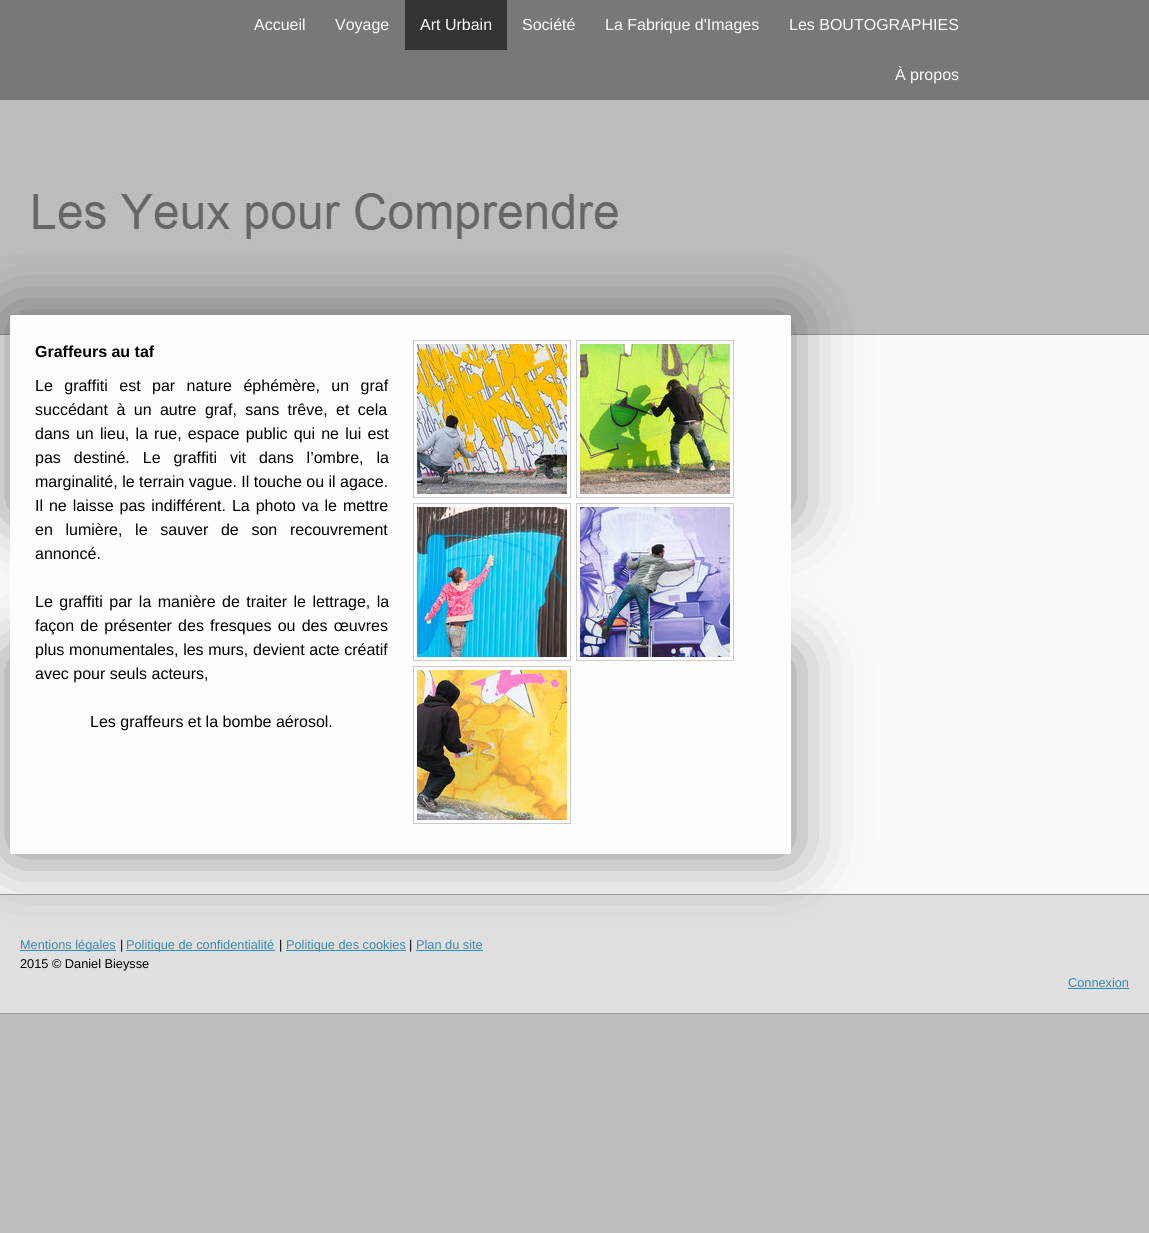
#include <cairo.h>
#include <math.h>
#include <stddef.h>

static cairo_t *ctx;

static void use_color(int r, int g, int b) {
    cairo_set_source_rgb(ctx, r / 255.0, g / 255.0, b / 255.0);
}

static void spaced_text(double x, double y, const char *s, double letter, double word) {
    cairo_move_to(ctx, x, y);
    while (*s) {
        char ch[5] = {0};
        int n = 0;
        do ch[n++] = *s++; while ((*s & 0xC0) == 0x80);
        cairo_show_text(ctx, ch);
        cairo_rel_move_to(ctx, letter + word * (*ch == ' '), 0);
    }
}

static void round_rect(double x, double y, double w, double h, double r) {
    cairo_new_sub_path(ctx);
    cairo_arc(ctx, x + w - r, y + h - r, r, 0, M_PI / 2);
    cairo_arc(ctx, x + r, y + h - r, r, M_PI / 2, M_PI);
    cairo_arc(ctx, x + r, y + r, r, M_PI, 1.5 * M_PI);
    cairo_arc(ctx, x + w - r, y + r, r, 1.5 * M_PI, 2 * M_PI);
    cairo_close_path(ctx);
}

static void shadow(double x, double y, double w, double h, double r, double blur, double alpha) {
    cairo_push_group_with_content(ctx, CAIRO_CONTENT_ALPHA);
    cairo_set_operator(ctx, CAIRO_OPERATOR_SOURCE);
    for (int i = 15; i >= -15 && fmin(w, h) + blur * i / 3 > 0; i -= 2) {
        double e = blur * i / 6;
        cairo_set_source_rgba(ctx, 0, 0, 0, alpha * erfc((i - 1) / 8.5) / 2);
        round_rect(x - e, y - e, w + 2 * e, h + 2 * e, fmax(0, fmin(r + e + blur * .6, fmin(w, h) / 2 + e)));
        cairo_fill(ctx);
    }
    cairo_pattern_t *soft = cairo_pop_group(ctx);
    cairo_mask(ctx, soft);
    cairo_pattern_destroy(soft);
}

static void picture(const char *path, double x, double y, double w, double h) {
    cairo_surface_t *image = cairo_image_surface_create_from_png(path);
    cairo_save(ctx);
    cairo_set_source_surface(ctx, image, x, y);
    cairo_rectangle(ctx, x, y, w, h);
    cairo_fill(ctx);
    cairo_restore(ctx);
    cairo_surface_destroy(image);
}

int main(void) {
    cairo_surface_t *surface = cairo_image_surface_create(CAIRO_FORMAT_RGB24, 1149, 1233);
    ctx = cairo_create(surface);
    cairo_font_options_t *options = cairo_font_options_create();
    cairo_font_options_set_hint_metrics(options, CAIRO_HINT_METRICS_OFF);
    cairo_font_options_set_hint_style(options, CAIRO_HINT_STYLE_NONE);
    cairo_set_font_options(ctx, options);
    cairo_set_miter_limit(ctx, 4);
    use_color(189, 189, 189);
    cairo_paint(ctx);
    use_color(120, 120, 120);
    cairo_rectangle(ctx, 0, 0, 1149, 100);
    cairo_fill(ctx);
    cairo_select_font_face(ctx, "Liberation Sans", CAIRO_FONT_SLANT_NORMAL, CAIRO_FONT_WEIGHT_NORMAL);
    cairo_set_font_size(ctx, 16);
    use_color(253, 253, 253);
    cairo_move_to(ctx, 254, 30);
    cairo_show_text(ctx, "Accueil");
    cairo_move_to(ctx, 335, 30);
    cairo_show_text(ctx, "Voyage");
    use_color(51, 51, 51);
    cairo_rectangle(ctx, 405, 0, 102, 50);
    cairo_fill(ctx);
    use_color(253, 253, 253);
    cairo_move_to(ctx, 420, 30);
    cairo_show_text(ctx, "Art Urbain");
    cairo_move_to(ctx, 522, 30);
    cairo_show_text(ctx, "Société");
    cairo_move_to(ctx, 605, 30);
    cairo_show_text(ctx, "La Fabrique d'Images");
    cairo_move_to(ctx, 789, 30);
    cairo_show_text(ctx, "Les BOUTOGRAPHIES");
    cairo_move_to(ctx, 895, 80);
    cairo_show_text(ctx, "À propos");
    picture("img1.png", 31, 193, 591, 48);
    use_color(250, 250, 250);
    cairo_rectangle(ctx, 0, 335, 1149, 559);
    cairo_fill(ctx);
    use_color(153, 153, 153);
    cairo_rectangle(ctx, 0, 334, 1149, 1);
    cairo_fill(ctx);
    use_color(51, 51, 51);
    shadow(10, 315, 781, 200, 0, 34, 0.6);
    use_color(224, 224, 224);
    cairo_rectangle(ctx, 0, 895, 1149, 118);
    cairo_fill(ctx);
    use_color(153, 153, 153);
    cairo_rectangle(ctx, 0, 894, 1149, 1);
    cairo_fill(ctx);
    use_color(54, 137, 178);
    cairo_rectangle(ctx, 20, 950, 96, 1);
    cairo_fill(ctx);
    cairo_rectangle(ctx, 126, 950, 149, 1);
    cairo_fill(ctx);
    cairo_rectangle(ctx, 286, 950, 120, 1);
    cairo_fill(ctx);
    cairo_rectangle(ctx, 416, 950, 67, 1);
    cairo_fill(ctx);
    use_color(51, 51, 51);
    shadow(10, 654, 781, 200, 0, 34, 0.6);
    use_color(253, 253, 253);
    round_rect(10, 315, 781, 539, 2);
    cairo_fill(ctx);
    cairo_select_font_face(ctx, "Liberation Sans", CAIRO_FONT_SLANT_NORMAL, CAIRO_FONT_WEIGHT_BOLD);
    use_color(0, 0, 0);
    cairo_move_to(ctx, 35, 357);
    cairo_show_text(ctx, "Graffeurs au taf");
    cairo_select_font_face(ctx, "Liberation Sans", CAIRO_FONT_SLANT_NORMAL, CAIRO_FONT_WEIGHT_NORMAL);
    spaced_text(35, 391, "Le graffiti est par nature éphémère, un graf", 0, 7);
    spaced_text(35, 415, "succédant à un autre graf, sans trêve, et cela", 0, 4);
    spaced_text(35, 439, "dans un lieu, la rue, espace public qui ne lui est", 0, 1.75);
    spaced_text(35, 463, "pas destiné. Le graffiti vit dans l’ombre, la", 0, 8.5);
    cairo_move_to(ctx, 35, 487);
    cairo_show_text(ctx, "marginalité, le terrain vague. Il touche ou il agace.");
    spaced_text(35, 511, "Il ne laisse pas indifférent. La photo va le mettre", 0, 1.5);
    spaced_text(35, 535, "en lumière, le sauver de son recouvrement", 0, 8.25);
    cairo_move_to(ctx, 35, 559);
    cairo_show_text(ctx, "annoncé.");
    spaced_text(35, 607, "Le graffiti par la manière de traiter le lettrage, la", 0, 2);
    spaced_text(35, 631, "façon de présenter des fresques ou des œuvres", 0, 1.75);
    spaced_text(35, 655, "plus monumentales, les murs, devient acte créatif", 0, 0.25);
    cairo_move_to(ctx, 35, 679);
    cairo_show_text(ctx, "avec pour seuls acteurs,");
    cairo_move_to(ctx, 90, 727);
    cairo_show_text(ctx, "Les graffeurs et la bombe aérosol.");
    cairo_rectangle(ctx, 413.5, 340.5, 157, 157);
    use_color(204, 204, 204);
    cairo_set_line_width(ctx, 1);
    cairo_stroke(ctx);
    picture("img2.png", 417, 344, 150, 150);
    cairo_rectangle(ctx, 576.5, 340.5, 157, 157);
    cairo_stroke(ctx);
    picture("img3.png", 580, 344, 150, 150);
    cairo_rectangle(ctx, 413.5, 503.5, 157, 157);
    cairo_stroke(ctx);
    picture("img4.png", 417, 507, 150, 150);
    cairo_rectangle(ctx, 576.5, 503.5, 157, 157);
    cairo_stroke(ctx);
    picture("img5.png", 580, 507, 150, 150);
    cairo_rectangle(ctx, 413.5, 666.5, 157, 157);
    cairo_stroke(ctx);
    picture("img6.png", 417, 670, 150, 150);
    use_color(153, 153, 153);
    cairo_rectangle(ctx, 0, 1013, 1149, 1);
    cairo_fill(ctx);
    cairo_set_font_size(ctx, 12.75);
    use_color(54, 137, 178);
    cairo_move_to(ctx, 20, 949);
    cairo_show_text(ctx, "Mentions légales");
    use_color(0, 0, 0);
    cairo_move_to(ctx, 120, 949);
    cairo_show_text(ctx, "|");
    use_color(54, 137, 178);
    cairo_move_to(ctx, 126, 949);
    cairo_show_text(ctx, "Politique de confidentialité");
    use_color(0, 0, 0);
    cairo_move_to(ctx, 279, 949);
    cairo_show_text(ctx, "|");
    use_color(54, 137, 178);
    cairo_move_to(ctx, 286, 949);
    cairo_show_text(ctx, "Politique des cookies");
    use_color(0, 0, 0);
    cairo_move_to(ctx, 409, 949);
    cairo_show_text(ctx, "|");
    use_color(54, 137, 178);
    cairo_move_to(ctx, 416, 949);
    cairo_show_text(ctx, "Plan du site");
    use_color(0, 0, 0);
    cairo_move_to(ctx, 20, 968);
    cairo_show_text(ctx, "2015 © Daniel Bieysse");
    use_color(54, 137, 178);
    cairo_move_to(ctx, 1068, 987);
    cairo_show_text(ctx, "Connexion");
    cairo_rectangle(ctx, 1068, 988, 61, 1);
    cairo_fill(ctx);
    cairo_surface_write_to_png(surface, "result.png");
    cairo_font_options_destroy(options);
    cairo_destroy(ctx);
    cairo_surface_destroy(surface);
    return 0;
}
